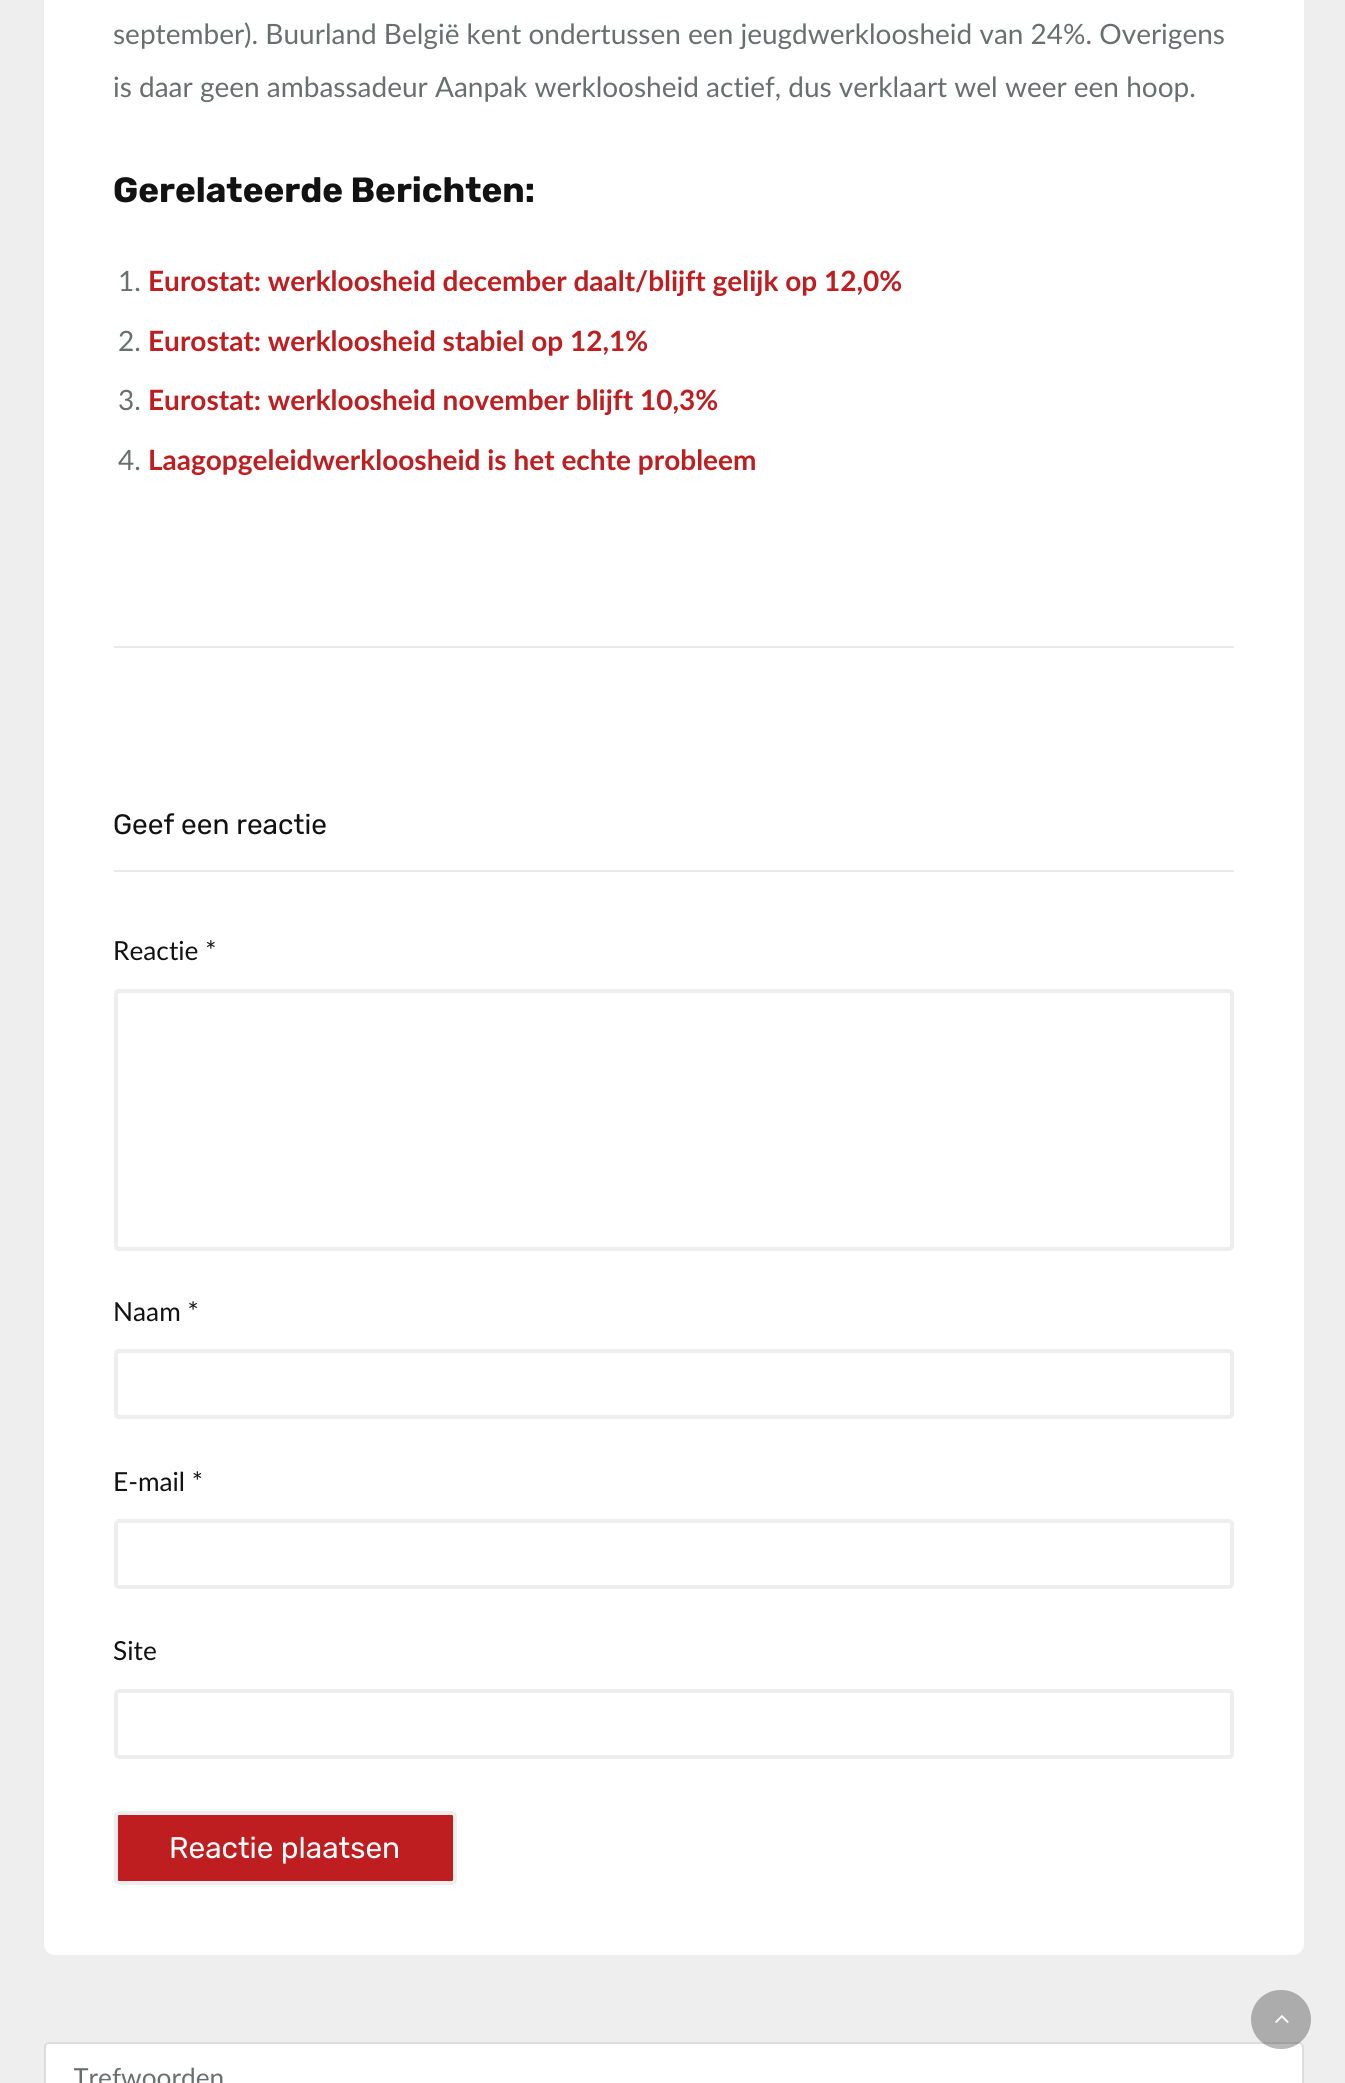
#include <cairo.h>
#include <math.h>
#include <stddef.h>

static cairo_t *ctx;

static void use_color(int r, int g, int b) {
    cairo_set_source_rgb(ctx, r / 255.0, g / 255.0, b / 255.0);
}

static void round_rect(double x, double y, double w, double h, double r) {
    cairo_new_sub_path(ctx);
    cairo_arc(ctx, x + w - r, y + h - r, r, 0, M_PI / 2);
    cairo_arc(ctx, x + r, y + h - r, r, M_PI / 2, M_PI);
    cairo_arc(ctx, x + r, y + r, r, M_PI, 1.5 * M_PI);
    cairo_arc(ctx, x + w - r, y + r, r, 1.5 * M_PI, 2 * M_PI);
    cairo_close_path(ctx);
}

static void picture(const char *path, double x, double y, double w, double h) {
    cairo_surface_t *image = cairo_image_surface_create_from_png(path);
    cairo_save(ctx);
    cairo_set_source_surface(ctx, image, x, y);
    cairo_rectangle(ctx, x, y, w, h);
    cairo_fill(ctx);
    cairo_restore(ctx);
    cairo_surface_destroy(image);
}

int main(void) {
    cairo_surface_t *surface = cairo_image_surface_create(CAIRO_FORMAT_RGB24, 1345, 2083);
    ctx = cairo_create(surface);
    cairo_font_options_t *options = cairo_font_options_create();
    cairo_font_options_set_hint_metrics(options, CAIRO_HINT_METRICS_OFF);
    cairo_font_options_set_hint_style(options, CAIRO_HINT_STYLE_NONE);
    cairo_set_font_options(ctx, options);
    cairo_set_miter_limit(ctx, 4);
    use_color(238, 238, 238);
    cairo_paint(ctx);
    use_color(255, 255, 255);
    round_rect(44, -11, 1260, 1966, 11);
    cairo_fill(ctx);
    cairo_select_font_face(ctx, "Lato", CAIRO_FONT_SLANT_NORMAL, CAIRO_FONT_WEIGHT_NORMAL);
    cairo_set_font_size(ctx, 28);
    use_color(105, 110, 111);
    cairo_move_to(ctx, 113, 44);
    cairo_show_text(ctx, "september). Buurland België kent ondertussen een jeugdwerkloosheid van 24%. Overigens");
    cairo_move_to(ctx, 113, 97);
    cairo_show_text(ctx, "is daar geen ambassadeur Aanpak werkloosheid actief, dus verklaart wel weer een hoop.");
    cairo_select_font_face(ctx, "Rubik", CAIRO_FONT_SLANT_NORMAL, CAIRO_FONT_WEIGHT_BOLD);
    cairo_set_font_size(ctx, 35);
    use_color(18, 18, 18);
    cairo_move_to(ctx, 113, 202);
    cairo_show_text(ctx, "Gerelateerde Berichten:");
    cairo_select_font_face(ctx, "Lato", CAIRO_FONT_SLANT_NORMAL, CAIRO_FONT_WEIGHT_NORMAL);
    cairo_set_font_size(ctx, 28);
    use_color(105, 110, 111);
    cairo_move_to(ctx, 118, 291);
    cairo_show_text(ctx, "1.");
    cairo_select_font_face(ctx, "Lato", CAIRO_FONT_SLANT_NORMAL, CAIRO_FONT_WEIGHT_BOLD);
    use_color(191, 30, 33);
    cairo_move_to(ctx, 148, 291);
    cairo_show_text(ctx, "Eurostat: werkloosheid december daalt/blijft gelijk op 12,0%");
    cairo_select_font_face(ctx, "Lato", CAIRO_FONT_SLANT_NORMAL, CAIRO_FONT_WEIGHT_NORMAL);
    use_color(105, 110, 111);
    cairo_move_to(ctx, 118, 351);
    cairo_show_text(ctx, "2.");
    cairo_select_font_face(ctx, "Lato", CAIRO_FONT_SLANT_NORMAL, CAIRO_FONT_WEIGHT_BOLD);
    use_color(191, 30, 33);
    cairo_move_to(ctx, 148, 351);
    cairo_show_text(ctx, "Eurostat: werkloosheid stabiel op 12,1%");
    cairo_select_font_face(ctx, "Lato", CAIRO_FONT_SLANT_NORMAL, CAIRO_FONT_WEIGHT_NORMAL);
    use_color(105, 110, 111);
    cairo_move_to(ctx, 118, 410);
    cairo_show_text(ctx, "3.");
    cairo_select_font_face(ctx, "Lato", CAIRO_FONT_SLANT_NORMAL, CAIRO_FONT_WEIGHT_BOLD);
    use_color(191, 30, 33);
    cairo_move_to(ctx, 148, 410);
    cairo_show_text(ctx, "Eurostat: werkloosheid november blijft 10,3%");
    cairo_select_font_face(ctx, "Lato", CAIRO_FONT_SLANT_NORMAL, CAIRO_FONT_WEIGHT_NORMAL);
    use_color(105, 110, 111);
    cairo_move_to(ctx, 118, 470);
    cairo_show_text(ctx, "4.");
    cairo_select_font_face(ctx, "Lato", CAIRO_FONT_SLANT_NORMAL, CAIRO_FONT_WEIGHT_BOLD);
    use_color(191, 30, 33);
    cairo_move_to(ctx, 148, 470);
    cairo_show_text(ctx, "Laagopgeleidwerkloosheid is het echte probleem");
    use_color(234, 234, 234);
    cairo_rectangle(ctx, 114, 646, 1120, 2);
    cairo_fill(ctx);
    cairo_select_font_face(ctx, "Rubik", CAIRO_FONT_SLANT_NORMAL, CAIRO_FONT_WEIGHT_NORMAL);
    use_color(18, 18, 18);
    cairo_move_to(ctx, 113, 834);
    cairo_show_text(ctx, "Geef een reactie");
    use_color(234, 234, 234);
    cairo_rectangle(ctx, 114, 870, 1120, 2);
    cairo_fill(ctx);
    cairo_select_font_face(ctx, "Lato", CAIRO_FONT_SLANT_NORMAL, CAIRO_FONT_WEIGHT_NORMAL);
    cairo_set_font_size(ctx, 26.25);
    use_color(18, 18, 18);
    cairo_move_to(ctx, 113, 960);
    cairo_show_text(ctx, "Reactie *");
    round_rect(116, 991, 1116, 258, 3);
    use_color(238, 238, 238);
    cairo_set_line_width(ctx, 4);
    cairo_stroke(ctx);
    use_color(18, 18, 18);
    cairo_move_to(ctx, 113, 1321);
    cairo_show_text(ctx, "Naam *");
    round_rect(116, 1351, 1116, 66, 3);
    use_color(238, 238, 238);
    cairo_stroke(ctx);
    use_color(18, 18, 18);
    cairo_move_to(ctx, 113, 1491);
    cairo_show_text(ctx, "E-mail *");
    round_rect(116, 1521, 1116, 66, 3);
    use_color(238, 238, 238);
    cairo_stroke(ctx);
    use_color(18, 18, 18);
    cairo_move_to(ctx, 113, 1660);
    cairo_show_text(ctx, "Site");
    round_rect(116, 1691, 1116, 66, 3);
    use_color(238, 238, 238);
    cairo_stroke(ctx);
    use_color(191, 30, 33);
    round_rect(116, 1813, 339, 70, 3);
    cairo_fill_preserve(ctx);
    use_color(238, 238, 238);
    cairo_stroke(ctx);
    cairo_select_font_face(ctx, "Rubik", CAIRO_FONT_SLANT_NORMAL, CAIRO_FONT_WEIGHT_NORMAL);
    cairo_set_font_size(ctx, 29.75);
    use_color(255, 255, 255);
    cairo_move_to(ctx, 169, 1858);
    cairo_show_text(ctx, "Reactie plaatsen");
    round_rect(45, 2043, 1258, 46, 4);
    cairo_fill_preserve(ctx);
    use_color(221, 221, 221);
    cairo_set_line_width(ctx, 2);
    cairo_stroke(ctx);
    cairo_save(ctx);
    cairo_rectangle(ctx, 74, 2062, 1193, 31);
    cairo_clip(ctx);
    cairo_select_font_face(ctx, "Lato", CAIRO_FONT_SLANT_NORMAL, CAIRO_FONT_WEIGHT_NORMAL);
    cairo_set_font_size(ctx, 26.25);
    use_color(105, 110, 111);
    cairo_move_to(ctx, 73, 2087);
    cairo_show_text(ctx, "Trefwoorden");
    cairo_restore(ctx);
    cairo_set_source_rgba(ctx, 0.071, 0.071, 0.071, 0.3);
    round_rect(1251, 1990, 60, 59, 29.5);
    cairo_fill(ctx);
    picture("img1.png", 1275, 2015, 14, 8);
    cairo_surface_write_to_png(surface, "result.png");
    cairo_font_options_destroy(options);
    cairo_destroy(ctx);
    cairo_surface_destroy(surface);
    return 0;
}
